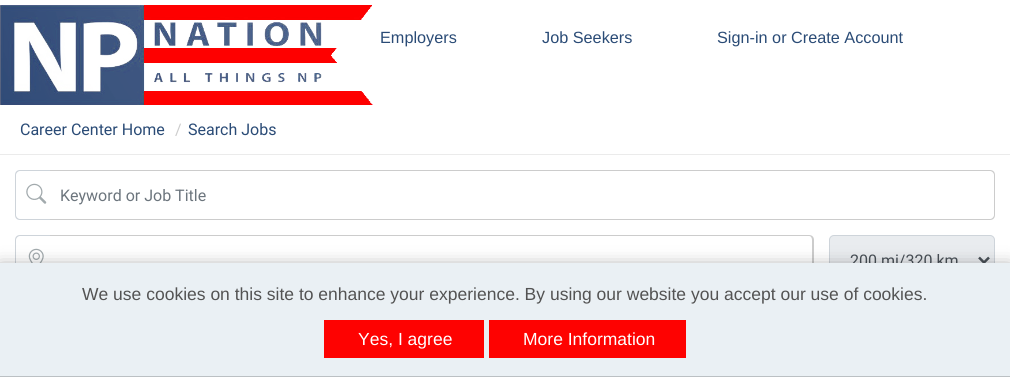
#include <cairo.h>
#include <math.h>
#include <stddef.h>

static cairo_t *ctx;

static void use_color(int r, int g, int b) {
    cairo_set_source_rgb(ctx, r / 255.0, g / 255.0, b / 255.0);
}

static void round_rect(double x, double y, double w, double h, double r) {
    cairo_new_sub_path(ctx);
    cairo_arc(ctx, x + w - r, y + h - r, r, 0, M_PI / 2);
    cairo_arc(ctx, x + r, y + h - r, r, M_PI / 2, M_PI);
    cairo_arc(ctx, x + r, y + r, r, M_PI, 1.5 * M_PI);
    cairo_arc(ctx, x + w - r, y + r, r, 1.5 * M_PI, 2 * M_PI);
    cairo_close_path(ctx);
}

static void shadow(double x, double y, double w, double h, double r, double blur, double alpha) {
    cairo_push_group_with_content(ctx, CAIRO_CONTENT_ALPHA);
    cairo_set_operator(ctx, CAIRO_OPERATOR_SOURCE);
    for (int i = 15; i >= -15 && fmin(w, h) + blur * i / 3 > 0; i -= 2) {
        double e = blur * i / 6;
        cairo_set_source_rgba(ctx, 0, 0, 0, alpha * erfc((i - 1) / 8.5) / 2);
        round_rect(x - e, y - e, w + 2 * e, h + 2 * e, fmax(0, fmin(r + e + blur * .6, fmin(w, h) / 2 + e)));
        cairo_fill(ctx);
    }
    cairo_pattern_t *soft = cairo_pop_group(ctx);
    cairo_mask(ctx, soft);
    cairo_pattern_destroy(soft);
}

static void picture(const char *path, double x, double y, double w, double h) {
    cairo_surface_t *image = cairo_image_surface_create_from_png(path);
    cairo_save(ctx);
    cairo_set_source_surface(ctx, image, x, y);
    cairo_rectangle(ctx, x, y, w, h);
    cairo_fill(ctx);
    cairo_restore(ctx);
    cairo_surface_destroy(image);
}

int main(void) {
    cairo_surface_t *surface = cairo_image_surface_create(CAIRO_FORMAT_RGB24, 1010, 377);
    ctx = cairo_create(surface);
    cairo_font_options_t *options = cairo_font_options_create();
    cairo_font_options_set_hint_metrics(options, CAIRO_HINT_METRICS_OFF);
    cairo_font_options_set_hint_style(options, CAIRO_HINT_STYLE_NONE);
    cairo_set_font_options(ctx, options);
    cairo_set_miter_limit(ctx, 4);
    use_color(255, 255, 255);
    cairo_paint(ctx);
    picture("img1.png", 0, 5, 373, 100);
    cairo_select_font_face(ctx, "Liberation Sans", CAIRO_FONT_SLANT_NORMAL, CAIRO_FONT_WEIGHT_NORMAL);
    cairo_set_font_size(ctx, 16.25);
    use_color(42, 75, 118);
    cairo_move_to(ctx, 380, 43);
    cairo_show_text(ctx, "Employers");
    cairo_move_to(ctx, 542, 43);
    cairo_show_text(ctx, "Job Seekers");
    cairo_move_to(ctx, 717, 43);
    cairo_show_text(ctx, "Sign-in or Create Account");
    cairo_select_font_face(ctx, "Roboto", CAIRO_FONT_SLANT_NORMAL, CAIRO_FONT_WEIGHT_NORMAL);
    cairo_set_font_size(ctx, 16);
    cairo_move_to(ctx, 20, 135);
    cairo_show_text(ctx, "Career Center Home");
    use_color(204, 204, 204);
    cairo_move_to(ctx, 175, 135);
    cairo_show_text(ctx, "/");
    use_color(42, 75, 118);
    cairo_move_to(ctx, 188, 135);
    cairo_show_text(ctx, "Search Jobs");
    use_color(235, 235, 235);
    cairo_rectangle(ctx, 0, 154, 1010, 1);
    cairo_fill(ctx);
    use_color(206, 212, 218);
    cairo_set_fill_rule(ctx, CAIRO_FILL_RULE_EVEN_ODD);
    cairo_new_path(ctx);
    cairo_move_to(ctx, 20, 170);
    cairo_line_to(ctx, 51, 170);
    cairo_line_to(ctx, 51, 220);
    cairo_line_to(ctx, 20, 220);
    cairo_curve_to(ctx, 17, 220, 15, 218, 15, 215);
    cairo_line_to(ctx, 15, 175);
    cairo_curve_to(ctx, 15, 172, 17, 170, 20, 170);
    cairo_close_path(ctx);
    cairo_move_to(ctx, 20, 171);
    cairo_line_to(ctx, 51, 171);
    cairo_line_to(ctx, 51, 219);
    cairo_line_to(ctx, 20, 219);
    cairo_curve_to(ctx, 18, 219, 16, 217, 16, 215);
    cairo_line_to(ctx, 16, 175);
    cairo_curve_to(ctx, 16, 173, 18, 171, 20, 171);
    cairo_close_path(ctx);
    cairo_fill(ctx);
    picture("img2.png", 26, 183, 21, 21);
    use_color(204, 204, 204);
    cairo_new_path(ctx);
    cairo_move_to(ctx, 50, 170);
    cairo_line_to(ctx, 990, 170);
    cairo_curve_to(ctx, 993, 170, 995, 172, 995, 175);
    cairo_line_to(ctx, 995, 215);
    cairo_curve_to(ctx, 995, 218, 993, 220, 990, 220);
    cairo_line_to(ctx, 50, 220);
    cairo_close_path(ctx);
    cairo_move_to(ctx, 50, 171);
    cairo_line_to(ctx, 990, 171);
    cairo_curve_to(ctx, 992, 171, 994, 173, 994, 175);
    cairo_line_to(ctx, 994, 215);
    cairo_curve_to(ctx, 994, 217, 992, 219, 990, 219);
    cairo_line_to(ctx, 50, 219);
    cairo_close_path(ctx);
    cairo_fill(ctx);
    use_color(108, 117, 125);
    cairo_move_to(ctx, 60, 201);
    cairo_show_text(ctx, "Keyword or Job Title");
    use_color(206, 212, 218);
    cairo_new_path(ctx);
    cairo_move_to(ctx, 20, 235);
    cairo_line_to(ctx, 51, 235);
    cairo_line_to(ctx, 51, 285);
    cairo_line_to(ctx, 20, 285);
    cairo_curve_to(ctx, 17, 285, 15, 283, 15, 280);
    cairo_line_to(ctx, 15, 240);
    cairo_curve_to(ctx, 15, 237, 17, 235, 20, 235);
    cairo_close_path(ctx);
    cairo_move_to(ctx, 20, 236);
    cairo_line_to(ctx, 51, 236);
    cairo_line_to(ctx, 51, 284);
    cairo_line_to(ctx, 20, 284);
    cairo_curve_to(ctx, 18, 284, 16, 282, 16, 280);
    cairo_line_to(ctx, 16, 240);
    cairo_curve_to(ctx, 16, 238, 18, 236, 20, 236);
    cairo_close_path(ctx);
    cairo_fill(ctx);
    picture("img3.png", 28, 248, 16, 15);
    use_color(204, 204, 204);
    cairo_new_path(ctx);
    cairo_move_to(ctx, 50, 235);
    cairo_line_to(ctx, 809, 235);
    cairo_curve_to(ctx, 812, 235, 814, 237, 814, 240);
    cairo_line_to(ctx, 814, 280);
    cairo_curve_to(ctx, 814, 283, 812, 285, 809, 285);
    cairo_line_to(ctx, 50, 285);
    cairo_close_path(ctx);
    cairo_move_to(ctx, 50, 236);
    cairo_line_to(ctx, 809, 236);
    cairo_curve_to(ctx, 811, 236, 812, 238, 812, 240);
    cairo_line_to(ctx, 812, 280);
    cairo_curve_to(ctx, 812, 282, 811, 284, 809, 284);
    cairo_line_to(ctx, 50, 284);
    cairo_close_path(ctx);
    cairo_fill(ctx);
    use_color(233, 236, 239);
    round_rect(829.5, 235.5, 165, 49, 4.5);
    cairo_fill_preserve(ctx);
    use_color(206, 212, 218);
    cairo_set_line_width(ctx, 1);
    cairo_stroke(ctx);
    cairo_new_path(ctx);
    cairo_move_to(ctx, 979, 257.5);
    cairo_line_to(ctx, 984, 262.5);
    cairo_line_to(ctx, 989, 257.5);
    use_color(73, 80, 87);
    cairo_set_line_width(ctx, 2.5);
    cairo_stroke(ctx);
    cairo_move_to(ctx, 850, 266);
    cairo_show_text(ctx, "200 mi/320 km");
    use_color(0, 0, 0);
    shadow(0, 269, 1010, 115, 0, 9.5, 0.5);
    use_color(234, 240, 244);
    cairo_rectangle(ctx, 0, 263, 1010, 113);
    cairo_fill(ctx);
    use_color(187, 192, 195);
    cairo_rectangle(ctx, 0, 376, 1010, 1);
    cairo_fill(ctx);
    cairo_select_font_face(ctx, "Liberation Sans", CAIRO_FONT_SLANT_NORMAL, CAIRO_FONT_WEIGHT_NORMAL);
    cairo_set_font_size(ctx, 17.5);
    use_color(83, 83, 83);
    cairo_move_to(ctx, 82, 300);
    cairo_show_text(ctx, "We use cookies on this site to enhance your experience. By using our website you accept our use of cookies.");
    use_color(254, 2, 1);
    cairo_rectangle(ctx, 324, 320, 160, 38);
    cairo_fill(ctx);
    use_color(255, 255, 255);
    cairo_move_to(ctx, 358, 345);
    cairo_show_text(ctx, "Yes, I agree");
    use_color(254, 2, 1);
    cairo_rectangle(ctx, 489, 320, 197, 38);
    cairo_fill(ctx);
    use_color(255, 255, 255);
    cairo_move_to(ctx, 523, 345);
    cairo_show_text(ctx, "More Information");
    cairo_surface_write_to_png(surface, "result.png");
    cairo_font_options_destroy(options);
    cairo_destroy(ctx);
    cairo_surface_destroy(surface);
    return 0;
}
